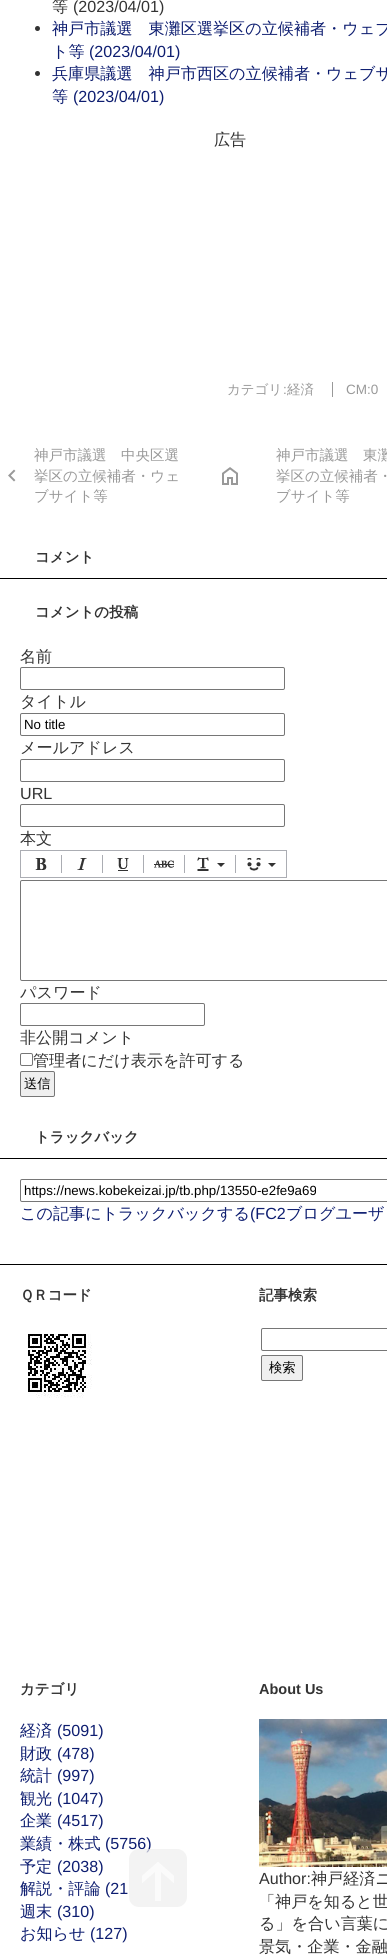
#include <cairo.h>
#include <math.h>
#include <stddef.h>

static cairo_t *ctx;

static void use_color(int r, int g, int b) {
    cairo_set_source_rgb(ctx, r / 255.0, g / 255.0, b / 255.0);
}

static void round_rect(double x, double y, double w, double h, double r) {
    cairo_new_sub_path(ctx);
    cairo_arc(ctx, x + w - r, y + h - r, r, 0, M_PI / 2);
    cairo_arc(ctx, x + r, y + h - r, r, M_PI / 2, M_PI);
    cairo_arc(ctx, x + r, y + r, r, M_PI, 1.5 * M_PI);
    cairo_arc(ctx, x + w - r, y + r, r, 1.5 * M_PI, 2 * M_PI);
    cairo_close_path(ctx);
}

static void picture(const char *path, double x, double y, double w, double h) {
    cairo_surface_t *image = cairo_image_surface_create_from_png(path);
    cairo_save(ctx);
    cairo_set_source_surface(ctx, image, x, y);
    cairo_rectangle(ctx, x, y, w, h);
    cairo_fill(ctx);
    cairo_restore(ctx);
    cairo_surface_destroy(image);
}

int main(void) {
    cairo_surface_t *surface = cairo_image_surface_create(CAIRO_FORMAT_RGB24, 387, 1957);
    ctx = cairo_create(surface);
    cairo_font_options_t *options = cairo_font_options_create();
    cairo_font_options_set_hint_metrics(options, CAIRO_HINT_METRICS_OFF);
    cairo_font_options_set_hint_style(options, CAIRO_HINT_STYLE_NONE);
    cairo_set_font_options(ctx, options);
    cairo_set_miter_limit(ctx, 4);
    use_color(255, 255, 255);
    cairo_paint(ctx);
    cairo_select_font_face(ctx, "WenQuanYi Zen Hei Medium", CAIRO_FONT_SLANT_NORMAL, CAIRO_FONT_WEIGHT_NORMAL);
    cairo_set_font_size(ctx, 16.1);
    use_color(51, 51, 51);
    cairo_move_to(ctx, 52, 12);
    cairo_show_text(ctx, "等");
    cairo_select_font_face(ctx, "Liberation Sans", CAIRO_FONT_SLANT_NORMAL, CAIRO_FONT_WEIGHT_NORMAL);
    cairo_move_to(ctx, 73, 12);
    cairo_show_text(ctx, "(2023/04/01)");
    cairo_new_path(ctx);
    cairo_arc(ctx, 37.5, 28.5, 2.5, 0, 2 * M_PI);
    cairo_fill(ctx);
    cairo_select_font_face(ctx, "WenQuanYi Zen Hei Medium", CAIRO_FONT_SLANT_NORMAL, CAIRO_FONT_WEIGHT_NORMAL);
    use_color(13, 29, 112);
    cairo_move_to(ctx, 52, 34);
    cairo_show_text(ctx, "神戸市議選　東灘区選挙区の立候補者・ウェブ");
    cairo_move_to(ctx, 52, 57);
    cairo_show_text(ctx, "ト等");
    cairo_select_font_face(ctx, "Liberation Sans", CAIRO_FONT_SLANT_NORMAL, CAIRO_FONT_WEIGHT_NORMAL);
    cairo_move_to(ctx, 89, 57);
    cairo_show_text(ctx, "(2023/04/01)");
    use_color(51, 51, 51);
    cairo_new_path(ctx);
    cairo_arc(ctx, 37.5, 73.5, 2.5, 0, 2 * M_PI);
    cairo_fill(ctx);
    cairo_select_font_face(ctx, "WenQuanYi Zen Hei Medium", CAIRO_FONT_SLANT_NORMAL, CAIRO_FONT_WEIGHT_NORMAL);
    use_color(13, 29, 112);
    cairo_move_to(ctx, 52, 79);
    cairo_show_text(ctx, "兵庫県議選　神戸市西区の立候補者・ウェブサ");
    cairo_move_to(ctx, 52, 102);
    cairo_show_text(ctx, "等");
    cairo_select_font_face(ctx, "Liberation Sans", CAIRO_FONT_SLANT_NORMAL, CAIRO_FONT_WEIGHT_NORMAL);
    cairo_move_to(ctx, 73, 102);
    cairo_show_text(ctx, "(2023/04/01)");
    cairo_select_font_face(ctx, "WenQuanYi Zen Hei Medium", CAIRO_FONT_SLANT_NORMAL, CAIRO_FONT_WEIGHT_NORMAL);
    use_color(51, 51, 51);
    cairo_move_to(ctx, 214, 145);
    cairo_show_text(ctx, "広告");
    cairo_set_font_size(ctx, 13.5);
    use_color(153, 153, 153);
    cairo_move_to(ctx, 227, 394);
    cairo_show_text(ctx, "カテゴリ");
    cairo_select_font_face(ctx, "Liberation Sans", CAIRO_FONT_SLANT_NORMAL, CAIRO_FONT_WEIGHT_NORMAL);
    cairo_move_to(ctx, 283, 394);
    cairo_show_text(ctx, ":");
    cairo_select_font_face(ctx, "WenQuanYi Zen Hei Medium", CAIRO_FONT_SLANT_NORMAL, CAIRO_FONT_WEIGHT_NORMAL);
    cairo_move_to(ctx, 287, 394);
    cairo_show_text(ctx, "経済");
    cairo_rectangle(ctx, 332, 382, 1, 15);
    cairo_fill(ctx);
    cairo_select_font_face(ctx, "Liberation Sans", CAIRO_FONT_SLANT_NORMAL, CAIRO_FONT_WEIGHT_NORMAL);
    cairo_move_to(ctx, 346, 394);
    cairo_show_text(ctx, "CM:0");
    cairo_select_font_face(ctx, "WenQuanYi Zen Hei Medium", CAIRO_FONT_SLANT_NORMAL, CAIRO_FONT_WEIGHT_NORMAL);
    cairo_set_font_size(ctx, 14.5);
    cairo_move_to(ctx, 34, 460);
    cairo_show_text(ctx, "神戸市議選　中央区選");
    picture("img1.png", 8, 469, 8, 13);
    cairo_move_to(ctx, 34, 481);
    cairo_show_text(ctx, "挙区の立候補者・ウェ");
    cairo_move_to(ctx, 34, 501);
    cairo_show_text(ctx, "ブサイト等");
    picture("img2.png", 222, 467, 16, 18);
    cairo_move_to(ctx, 276, 460);
    cairo_show_text(ctx, "神戸市議選　東灘");
    cairo_move_to(ctx, 276, 481);
    cairo_show_text(ctx, "挙区の立候補者・");
    cairo_move_to(ctx, 276, 501);
    cairo_show_text(ctx, "ブサイト等");
    use_color(0, 0, 0);
    cairo_rectangle(ctx, 0, 578, 387, 1);
    cairo_fill(ctx);
    cairo_select_font_face(ctx, "WenQuanYi Zen Hei", CAIRO_FONT_SLANT_NORMAL, CAIRO_FONT_WEIGHT_BOLD);
    use_color(51, 51, 51);
    cairo_move_to(ctx, 35, 562);
    cairo_show_text(ctx, "コメント");
    cairo_move_to(ctx, 35, 617);
    cairo_show_text(ctx, "コメントの投稿");
    cairo_select_font_face(ctx, "WenQuanYi Zen Hei Medium", CAIRO_FONT_SLANT_NORMAL, CAIRO_FONT_WEIGHT_NORMAL);
    cairo_set_font_size(ctx, 16.1);
    cairo_move_to(ctx, 20, 662);
    cairo_show_text(ctx, "名前");
    round_rect(20.5, 667.5, 264, 22, 1.5);
    use_color(118, 118, 118);
    cairo_set_line_width(ctx, 1);
    cairo_stroke(ctx);
    use_color(51, 51, 51);
    cairo_move_to(ctx, 20, 707);
    cairo_show_text(ctx, "タイトル");
    round_rect(20.5, 713.5, 264, 22, 1.5);
    use_color(118, 118, 118);
    cairo_stroke(ctx);
    cairo_select_font_face(ctx, "Liberation Sans", CAIRO_FONT_SLANT_NORMAL, CAIRO_FONT_WEIGHT_NORMAL);
    cairo_set_font_size(ctx, 13.3);
    use_color(0, 0, 0);
    cairo_move_to(ctx, 24, 729);
    cairo_show_text(ctx, "No title");
    cairo_select_font_face(ctx, "WenQuanYi Zen Hei Medium", CAIRO_FONT_SLANT_NORMAL, CAIRO_FONT_WEIGHT_NORMAL);
    cairo_set_font_size(ctx, 16.1);
    use_color(51, 51, 51);
    cairo_move_to(ctx, 20, 753);
    cairo_show_text(ctx, "メールアドレス");
    round_rect(20.5, 759.5, 264, 22, 1.5);
    use_color(118, 118, 118);
    cairo_stroke(ctx);
    cairo_select_font_face(ctx, "Liberation Sans", CAIRO_FONT_SLANT_NORMAL, CAIRO_FONT_WEIGHT_NORMAL);
    use_color(51, 51, 51);
    cairo_move_to(ctx, 20, 799);
    cairo_show_text(ctx, "URL");
    round_rect(20.5, 804.5, 264, 22, 1.5);
    use_color(118, 118, 118);
    cairo_stroke(ctx);
    cairo_select_font_face(ctx, "WenQuanYi Zen Hei Medium", CAIRO_FONT_SLANT_NORMAL, CAIRO_FONT_WEIGHT_NORMAL);
    use_color(51, 51, 51);
    cairo_move_to(ctx, 20, 844);
    cairo_show_text(ctx, "本文");
    picture("img3.png", 20, 850, 267, 28);
    round_rect(20.5, 880.5, 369, 100, 1.5);
    use_color(118, 118, 118);
    cairo_stroke(ctx);
    use_color(51, 51, 51);
    cairo_move_to(ctx, 20, 998);
    cairo_show_text(ctx, "パスワード");
    round_rect(20.5, 1003.5, 184, 22, 1.5);
    use_color(118, 118, 118);
    cairo_stroke(ctx);
    use_color(51, 51, 51);
    cairo_move_to(ctx, 20, 1043);
    cairo_show_text(ctx, "非公開コメント");
    round_rect(20.5, 1053.5, 12, 12, 1.5);
    use_color(118, 118, 118);
    cairo_stroke(ctx);
    use_color(51, 51, 51);
    cairo_move_to(ctx, 33, 1066);
    cairo_show_text(ctx, "管理者にだけ表示を許可する");
    use_color(239, 239, 239);
    round_rect(20.5, 1071.5, 34, 25, 1.5);
    cairo_fill_preserve(ctx);
    use_color(118, 118, 118);
    cairo_stroke(ctx);
    cairo_set_font_size(ctx, 13.3);
    use_color(0, 0, 0);
    cairo_move_to(ctx, 24, 1088);
    cairo_show_text(ctx, "送信");
    cairo_rectangle(ctx, 0, 1158, 387, 1);
    cairo_fill(ctx);
    cairo_select_font_face(ctx, "WenQuanYi Zen Hei", CAIRO_FONT_SLANT_NORMAL, CAIRO_FONT_WEIGHT_BOLD);
    cairo_set_font_size(ctx, 14.5);
    use_color(51, 51, 51);
    cairo_move_to(ctx, 35, 1142);
    cairo_show_text(ctx, "トラックバック");
    round_rect(20.5, 1179.5, 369, 22, 1.5);
    use_color(118, 118, 118);
    cairo_stroke(ctx);
    cairo_select_font_face(ctx, "Liberation Sans", CAIRO_FONT_SLANT_NORMAL, CAIRO_FONT_WEIGHT_NORMAL);
    cairo_set_font_size(ctx, 13.3);
    use_color(0, 0, 0);
    cairo_move_to(ctx, 24, 1195);
    cairo_show_text(ctx, "https://news.kobekeizai.jp/tb.php/13550-e2fe9a69");
    cairo_select_font_face(ctx, "WenQuanYi Zen Hei Medium", CAIRO_FONT_SLANT_NORMAL, CAIRO_FONT_WEIGHT_NORMAL);
    cairo_set_font_size(ctx, 16.1);
    use_color(13, 29, 112);
    cairo_move_to(ctx, 20, 1219);
    cairo_show_text(ctx, "この記事にトラックバックする");
    cairo_select_font_face(ctx, "Liberation Sans", CAIRO_FONT_SLANT_NORMAL, CAIRO_FONT_WEIGHT_NORMAL);
    cairo_move_to(ctx, 250, 1219);
    cairo_show_text(ctx, "(FC2");
    cairo_select_font_face(ctx, "WenQuanYi Zen Hei Medium", CAIRO_FONT_SLANT_NORMAL, CAIRO_FONT_WEIGHT_NORMAL);
    cairo_move_to(ctx, 286, 1219);
    cairo_show_text(ctx, "ブログユーザ");
    cairo_select_font_face(ctx, "Liberation Sans", CAIRO_FONT_SLANT_NORMAL, CAIRO_FONT_WEIGHT_NORMAL);
    cairo_move_to(ctx, 105, 1849);
    cairo_show_text(ctx, "(5756)");
    cairo_set_source_rgba(ctx, 0.933, 0.933, 0.933, 0.7);
    round_rect(129, 1849, 58, 58, 10);
    cairo_fill(ctx);
    picture("img4.png", 142, 1862, 32, 39);
    use_color(0, 0, 0);
    cairo_rectangle(ctx, 0, 1264, 387, 1);
    cairo_fill(ctx);
    cairo_select_font_face(ctx, "WenQuanYi Zen Hei", CAIRO_FONT_SLANT_NORMAL, CAIRO_FONT_WEIGHT_BOLD);
    cairo_set_font_size(ctx, 14.5);
    use_color(51, 51, 51);
    cairo_move_to(ctx, 20, 1300);
    cairo_show_text(ctx, "ＱＲコード");
    picture("img5.png", 28, 1334, 64, 64);
    cairo_move_to(ctx, 259, 1300);
    cairo_show_text(ctx, "記事検索");
    round_rect(261.5, 1328.5, 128, 22, 1.5);
    use_color(118, 118, 118);
    cairo_stroke(ctx);
    use_color(239, 239, 239);
    round_rect(261.5, 1355.5, 41, 25, 1.5);
    cairo_fill_preserve(ctx);
    use_color(118, 118, 118);
    cairo_stroke(ctx);
    cairo_select_font_face(ctx, "WenQuanYi Zen Hei Medium", CAIRO_FONT_SLANT_NORMAL, CAIRO_FONT_WEIGHT_NORMAL);
    cairo_set_font_size(ctx, 13.3);
    use_color(0, 0, 0);
    cairo_move_to(ctx, 269, 1372);
    cairo_show_text(ctx, "検索");
    cairo_select_font_face(ctx, "WenQuanYi Zen Hei", CAIRO_FONT_SLANT_NORMAL, CAIRO_FONT_WEIGHT_BOLD);
    cairo_set_font_size(ctx, 14.5);
    use_color(51, 51, 51);
    cairo_move_to(ctx, 20, 1694);
    cairo_show_text(ctx, "カテゴリ");
    cairo_select_font_face(ctx, "WenQuanYi Zen Hei Medium", CAIRO_FONT_SLANT_NORMAL, CAIRO_FONT_WEIGHT_NORMAL);
    cairo_set_font_size(ctx, 16.1);
    use_color(13, 29, 112);
    cairo_move_to(ctx, 20, 1736);
    cairo_show_text(ctx, "経済");
    cairo_select_font_face(ctx, "Liberation Sans", CAIRO_FONT_SLANT_NORMAL, CAIRO_FONT_WEIGHT_NORMAL);
    cairo_move_to(ctx, 57, 1736);
    cairo_show_text(ctx, "(5091)");
    cairo_select_font_face(ctx, "WenQuanYi Zen Hei Medium", CAIRO_FONT_SLANT_NORMAL, CAIRO_FONT_WEIGHT_NORMAL);
    cairo_move_to(ctx, 20, 1759);
    cairo_show_text(ctx, "財政");
    cairo_select_font_face(ctx, "Liberation Sans", CAIRO_FONT_SLANT_NORMAL, CAIRO_FONT_WEIGHT_NORMAL);
    cairo_move_to(ctx, 57, 1759);
    cairo_show_text(ctx, "(478)");
    cairo_select_font_face(ctx, "WenQuanYi Zen Hei Medium", CAIRO_FONT_SLANT_NORMAL, CAIRO_FONT_WEIGHT_NORMAL);
    cairo_move_to(ctx, 20, 1781);
    cairo_show_text(ctx, "統計");
    cairo_select_font_face(ctx, "Liberation Sans", CAIRO_FONT_SLANT_NORMAL, CAIRO_FONT_WEIGHT_NORMAL);
    cairo_move_to(ctx, 57, 1781);
    cairo_show_text(ctx, "(997)");
    cairo_select_font_face(ctx, "WenQuanYi Zen Hei Medium", CAIRO_FONT_SLANT_NORMAL, CAIRO_FONT_WEIGHT_NORMAL);
    cairo_move_to(ctx, 20, 1804);
    cairo_show_text(ctx, "観光");
    cairo_select_font_face(ctx, "Liberation Sans", CAIRO_FONT_SLANT_NORMAL, CAIRO_FONT_WEIGHT_NORMAL);
    cairo_move_to(ctx, 57, 1804);
    cairo_show_text(ctx, "(1047)");
    cairo_select_font_face(ctx, "WenQuanYi Zen Hei Medium", CAIRO_FONT_SLANT_NORMAL, CAIRO_FONT_WEIGHT_NORMAL);
    cairo_move_to(ctx, 20, 1826);
    cairo_show_text(ctx, "企業");
    cairo_select_font_face(ctx, "Liberation Sans", CAIRO_FONT_SLANT_NORMAL, CAIRO_FONT_WEIGHT_NORMAL);
    cairo_move_to(ctx, 57, 1826);
    cairo_show_text(ctx, "(4517)");
    cairo_select_font_face(ctx, "WenQuanYi Zen Hei Medium", CAIRO_FONT_SLANT_NORMAL, CAIRO_FONT_WEIGHT_NORMAL);
    cairo_move_to(ctx, 20, 1849);
    cairo_show_text(ctx, "業績・株式");
    cairo_move_to(ctx, 20, 1872);
    cairo_show_text(ctx, "予定");
    cairo_select_font_face(ctx, "Liberation Sans", CAIRO_FONT_SLANT_NORMAL, CAIRO_FONT_WEIGHT_NORMAL);
    cairo_move_to(ctx, 57, 1872);
    cairo_show_text(ctx, "(2038)");
    cairo_select_font_face(ctx, "WenQuanYi Zen Hei Medium", CAIRO_FONT_SLANT_NORMAL, CAIRO_FONT_WEIGHT_NORMAL);
    cairo_move_to(ctx, 20, 1894);
    cairo_show_text(ctx, "解説・評論");
    cairo_select_font_face(ctx, "Liberation Sans", CAIRO_FONT_SLANT_NORMAL, CAIRO_FONT_WEIGHT_NORMAL);
    cairo_move_to(ctx, 105, 1894);
    cairo_show_text(ctx, "(21");
    cairo_select_font_face(ctx, "WenQuanYi Zen Hei Medium", CAIRO_FONT_SLANT_NORMAL, CAIRO_FONT_WEIGHT_NORMAL);
    cairo_move_to(ctx, 20, 1917);
    cairo_show_text(ctx, "週末");
    cairo_select_font_face(ctx, "Liberation Sans", CAIRO_FONT_SLANT_NORMAL, CAIRO_FONT_WEIGHT_NORMAL);
    cairo_move_to(ctx, 57, 1917);
    cairo_show_text(ctx, "(310)");
    cairo_select_font_face(ctx, "WenQuanYi Zen Hei Medium", CAIRO_FONT_SLANT_NORMAL, CAIRO_FONT_WEIGHT_NORMAL);
    cairo_move_to(ctx, 20, 1939);
    cairo_show_text(ctx, "お知らせ");
    cairo_select_font_face(ctx, "Liberation Sans", CAIRO_FONT_SLANT_NORMAL, CAIRO_FONT_WEIGHT_NORMAL);
    cairo_move_to(ctx, 90, 1939);
    cairo_show_text(ctx, "(127)");
    cairo_select_font_face(ctx, "Liberation Sans", CAIRO_FONT_SLANT_NORMAL, CAIRO_FONT_WEIGHT_BOLD);
    cairo_set_font_size(ctx, 14.5);
    use_color(51, 51, 51);
    cairo_move_to(ctx, 259, 1694);
    cairo_show_text(ctx, "About Us");
    picture("img6.png", 259, 1719, 128, 148);
    cairo_select_font_face(ctx, "Liberation Sans", CAIRO_FONT_SLANT_NORMAL, CAIRO_FONT_WEIGHT_NORMAL);
    cairo_set_font_size(ctx, 16.1);
    cairo_move_to(ctx, 259, 1884);
    cairo_show_text(ctx, "Author:");
    cairo_select_font_face(ctx, "WenQuanYi Zen Hei Medium", CAIRO_FONT_SLANT_NORMAL, CAIRO_FONT_WEIGHT_NORMAL);
    cairo_move_to(ctx, 311, 1884);
    cairo_show_text(ctx, "神戸経済ニ");
    cairo_move_to(ctx, 259, 1907);
    cairo_show_text(ctx, "「神戸を知ると世");
    cairo_move_to(ctx, 259, 1929);
    cairo_show_text(ctx, "る」を合い言葉に");
    cairo_move_to(ctx, 259, 1952);
    cairo_show_text(ctx, "景気・企業・金融");
    cairo_surface_write_to_png(surface, "result.png");
    cairo_font_options_destroy(options);
    cairo_destroy(ctx);
    cairo_surface_destroy(surface);
    return 0;
}
